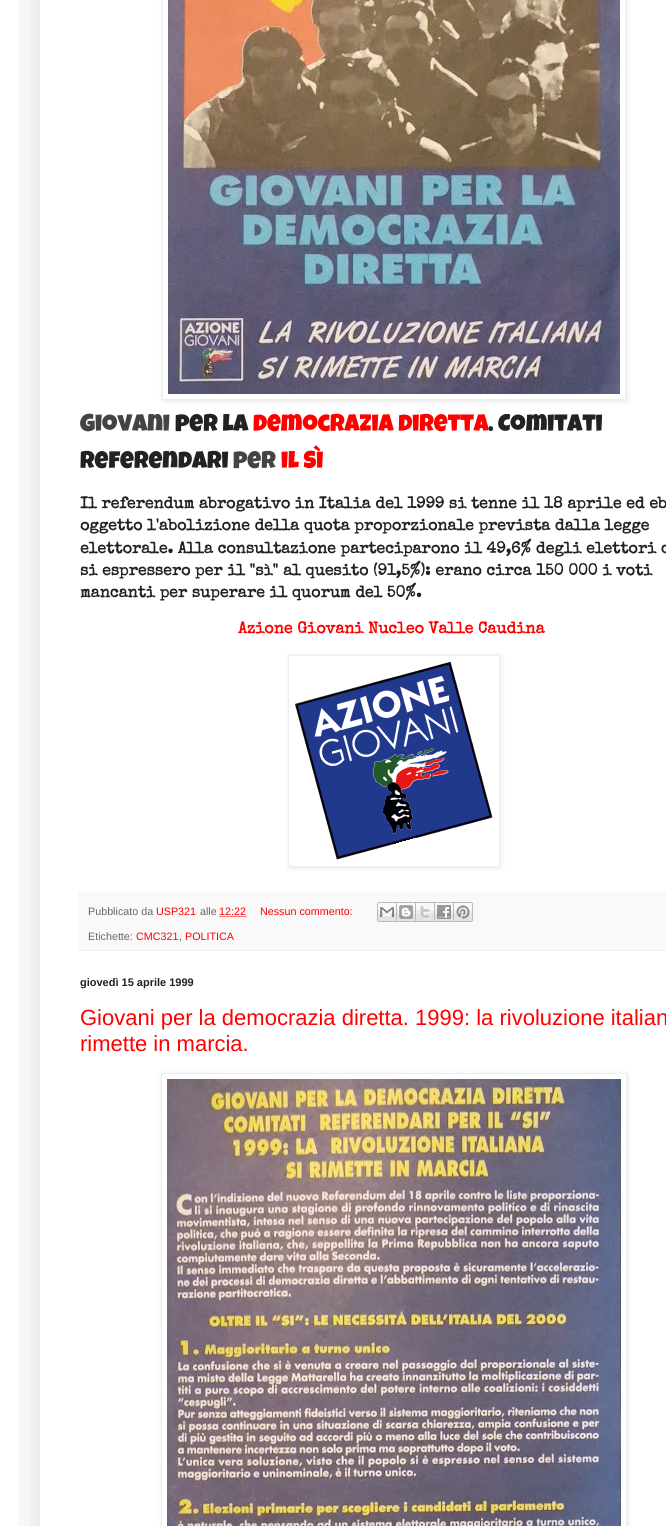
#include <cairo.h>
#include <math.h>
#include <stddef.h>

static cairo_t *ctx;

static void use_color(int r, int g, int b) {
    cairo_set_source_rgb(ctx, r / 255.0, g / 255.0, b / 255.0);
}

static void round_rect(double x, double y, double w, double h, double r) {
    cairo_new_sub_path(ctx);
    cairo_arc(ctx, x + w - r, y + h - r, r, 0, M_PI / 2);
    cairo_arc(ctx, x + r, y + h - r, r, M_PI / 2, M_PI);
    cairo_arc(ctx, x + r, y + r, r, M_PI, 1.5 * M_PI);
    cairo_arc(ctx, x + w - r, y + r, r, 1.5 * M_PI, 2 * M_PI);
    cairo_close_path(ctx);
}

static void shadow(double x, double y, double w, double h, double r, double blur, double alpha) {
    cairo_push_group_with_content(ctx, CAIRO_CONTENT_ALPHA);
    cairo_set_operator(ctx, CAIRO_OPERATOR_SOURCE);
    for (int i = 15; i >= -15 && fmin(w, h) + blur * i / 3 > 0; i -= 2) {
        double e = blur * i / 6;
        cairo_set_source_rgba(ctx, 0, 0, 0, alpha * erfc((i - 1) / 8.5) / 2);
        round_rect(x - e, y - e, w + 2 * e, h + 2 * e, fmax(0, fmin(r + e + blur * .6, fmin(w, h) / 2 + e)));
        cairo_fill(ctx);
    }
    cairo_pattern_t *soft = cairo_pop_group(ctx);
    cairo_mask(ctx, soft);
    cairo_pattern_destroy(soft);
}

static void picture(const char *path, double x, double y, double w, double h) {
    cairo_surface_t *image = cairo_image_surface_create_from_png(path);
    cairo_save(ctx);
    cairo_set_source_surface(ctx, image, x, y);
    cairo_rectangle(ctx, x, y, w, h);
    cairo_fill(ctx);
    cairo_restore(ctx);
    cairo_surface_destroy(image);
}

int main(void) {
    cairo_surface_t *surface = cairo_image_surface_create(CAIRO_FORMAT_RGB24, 666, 1526);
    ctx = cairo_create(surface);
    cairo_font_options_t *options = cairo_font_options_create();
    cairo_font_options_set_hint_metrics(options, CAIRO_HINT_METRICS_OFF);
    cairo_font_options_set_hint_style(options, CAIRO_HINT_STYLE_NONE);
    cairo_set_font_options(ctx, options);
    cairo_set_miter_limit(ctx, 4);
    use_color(255, 255, 255);
    cairo_paint(ctx);
    cairo_save(ctx);
    cairo_rectangle(ctx, 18, 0, 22, 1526);
    cairo_clip(ctx);
    use_color(0, 0, 0);
    shadow(40, -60, 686, 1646, 0, 20, 0.15);
    cairo_restore(ctx);
    cairo_save(ctx);
    cairo_set_fill_rule(ctx, CAIRO_FILL_RULE_EVEN_ODD);
    cairo_new_path(ctx);
    cairo_move_to(ctx, 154, 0);
    cairo_line_to(ctx, 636, 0);
    cairo_line_to(ctx, 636, 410);
    cairo_line_to(ctx, 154, 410);
    cairo_close_path(ctx);
    cairo_move_to(ctx, 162, -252);
    cairo_line_to(ctx, 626, -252);
    cairo_line_to(ctx, 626, 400);
    cairo_line_to(ctx, 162, 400);
    cairo_close_path(ctx);
    cairo_clip(ctx);
    use_color(0, 0, 0);
    shadow(163, -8, 464, 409, 0, 2.5, 0.1);
    cairo_restore(ctx);
    cairo_rectangle(ctx, 162.5, -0.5, 463, 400);
    use_color(238, 238, 238);
    cairo_set_line_width(ctx, 1);
    cairo_stroke(ctx);
    picture("img1.png", 168, 0, 452, 394);
    cairo_select_font_face(ctx, "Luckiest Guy", CAIRO_FONT_SLANT_NORMAL, CAIRO_FONT_WEIGHT_NORMAL);
    cairo_set_font_size(ctx, 24);
    use_color(68, 68, 68);
    cairo_move_to(ctx, 80, 431);
    cairo_show_text(ctx, "Giovani");
    use_color(34, 34, 34);
    cairo_move_to(ctx, 175, 431);
    cairo_show_text(ctx, "per la");
    use_color(255, 0, 0);
    cairo_move_to(ctx, 253, 431);
    cairo_show_text(ctx, "democrazia diretta");
    use_color(255, 255, 255);
    cairo_rectangle(ctx, 488, 427, 1, 4);
    cairo_fill(ctx);
    use_color(34, 34, 34);
    cairo_move_to(ctx, 488, 431);
    cairo_show_text(ctx, ". Comitati");
    cairo_move_to(ctx, 80, 468);
    cairo_show_text(ctx, "referendari");
    use_color(68, 68, 68);
    cairo_move_to(ctx, 233, 468);
    cairo_show_text(ctx, "per");
    use_color(255, 0, 0);
    cairo_move_to(ctx, 281, 468);
    cairo_show_text(ctx, "il Sì");
    cairo_select_font_face(ctx, "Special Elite", CAIRO_FONT_SLANT_NORMAL, CAIRO_FONT_WEIGHT_BOLD);
    cairo_set_font_size(ctx, 16);
    use_color(34, 34, 34);
    cairo_move_to(ctx, 80, 508);
    cairo_show_text(ctx, "Il referendum abrogativo in Italia del 1999 si tenne il 18 aprile ed eb");
    cairo_move_to(ctx, 80, 530);
    cairo_show_text(ctx, "oggetto l'abolizione della quota proporzionale prevista dalla legge");
    cairo_move_to(ctx, 80, 553);
    cairo_show_text(ctx, "elettorale. Alla consultazione parteciparono il 49,6% degli elettori c");
    cairo_move_to(ctx, 80, 575);
    cairo_show_text(ctx, "si espressero per il \"sì\" al quesito (91,5%): erano circa 150 000 i voti");
    cairo_move_to(ctx, 80, 597);
    cairo_show_text(ctx, "mancanti per superare il quorum del 50%.");
    use_color(255, 0, 0);
    cairo_move_to(ctx, 238, 633);
    cairo_show_text(ctx, "Azione Giovani Nucleo Valle Caudina");
    cairo_save(ctx);
    cairo_set_fill_rule(ctx, CAIRO_FILL_RULE_EVEN_ODD);
    cairo_new_path(ctx);
    cairo_move_to(ctx, 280, 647);
    cairo_line_to(ctx, 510, 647);
    cairo_line_to(ctx, 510, 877);
    cairo_line_to(ctx, 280, 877);
    cairo_close_path(ctx);
    cairo_move_to(ctx, 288, 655);
    cairo_line_to(ctx, 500, 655);
    cairo_line_to(ctx, 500, 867);
    cairo_line_to(ctx, 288, 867);
    cairo_close_path(ctx);
    cairo_clip(ctx);
    use_color(0, 0, 0);
    shadow(289, 656, 212, 212, 0, 2.5, 0.1);
    cairo_restore(ctx);
    cairo_rectangle(ctx, 288.5, 655.5, 211, 211);
    use_color(238, 238, 238);
    cairo_stroke(ctx);
    picture("img2.png", 295, 661, 198, 199);
    use_color(249, 249, 249);
    cairo_rectangle(ctx, 78, 892, 588, 58);
    cairo_fill(ctx);
    use_color(238, 238, 238);
    cairo_rectangle(ctx, 78, 950, 588, 1);
    cairo_fill(ctx);
    cairo_select_font_face(ctx, "Liberation Sans", CAIRO_FONT_SLANT_NORMAL, CAIRO_FONT_WEIGHT_NORMAL);
    cairo_set_font_size(ctx, 10.75);
    use_color(102, 102, 102);
    cairo_move_to(ctx, 88, 915);
    cairo_show_text(ctx, "Pubblicato da");
    use_color(255, 0, 0);
    cairo_move_to(ctx, 156, 915);
    cairo_show_text(ctx, "USP321");
    use_color(102, 102, 102);
    cairo_move_to(ctx, 200, 915);
    cairo_show_text(ctx, "alle");
    use_color(255, 0, 0);
    cairo_move_to(ctx, 219, 915);
    cairo_show_text(ctx, "12:22");
    cairo_new_path(ctx);
    cairo_move_to(ctx, 219.5, 916.5);
    cairo_line_to(ctx, 246.5, 916.5);
    cairo_set_dash(ctx, (double[]){1, 1}, 2, 0);
    cairo_stroke(ctx);
    cairo_move_to(ctx, 260, 915);
    cairo_show_text(ctx, "Nessun commento:");
    picture("img3.png", 377, 902, 20, 20);
    picture("img4.png", 397, 902, 19, 20);
    picture("img5.png", 416, 902, 19, 20);
    picture("img6.png", 435, 902, 19, 20);
    picture("img7.png", 454, 902, 19, 20);
    use_color(102, 102, 102);
    cairo_move_to(ctx, 88, 940);
    cairo_show_text(ctx, "Etichette:");
    use_color(255, 0, 0);
    cairo_move_to(ctx, 136, 940);
    cairo_show_text(ctx, "CMC321");
    use_color(102, 102, 102);
    cairo_move_to(ctx, 179, 940);
    cairo_show_text(ctx, ",");
    use_color(255, 0, 0);
    cairo_move_to(ctx, 185, 940);
    cairo_show_text(ctx, "POLITICA");
    cairo_select_font_face(ctx, "Liberation Sans", CAIRO_FONT_SLANT_NORMAL, CAIRO_FONT_WEIGHT_BOLD);
    cairo_set_font_size(ctx, 11);
    use_color(34, 34, 34);
    cairo_move_to(ctx, 80, 986);
    cairo_show_text(ctx, "giovedì 15 aprile 1999");
    cairo_select_font_face(ctx, "Liberation Sans", CAIRO_FONT_SLANT_NORMAL, CAIRO_FONT_WEIGHT_NORMAL);
    cairo_set_font_size(ctx, 22);
    use_color(255, 0, 0);
    cairo_move_to(ctx, 80, 1025);
    cairo_show_text(ctx, "Giovani per la democrazia diretta. 1999: la rivoluzione italian");
    cairo_move_to(ctx, 80, 1051);
    cairo_show_text(ctx, "rimette in marcia.");
    cairo_save(ctx);
    cairo_set_fill_rule(ctx, CAIRO_FILL_RULE_EVEN_ODD);
    cairo_new_path(ctx);
    cairo_move_to(ctx, 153, 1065);
    cairo_line_to(ctx, 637, 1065);
    cairo_line_to(ctx, 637, 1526);
    cairo_line_to(ctx, 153, 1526);
    cairo_close_path(ctx);
    cairo_move_to(ctx, 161, 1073);
    cairo_line_to(ctx, 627, 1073);
    cairo_line_to(ctx, 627, 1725);
    cairo_line_to(ctx, 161, 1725);
    cairo_close_path(ctx);
    cairo_clip(ctx);
    use_color(0, 0, 0);
    shadow(162, 1074, 466, 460, 0, 2.5, 0.1);
    cairo_restore(ctx);
    cairo_rectangle(ctx, 161.5, 1073.5, 465, 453);
    use_color(238, 238, 238);
    cairo_set_dash(ctx, NULL, 0, 0);
    cairo_stroke(ctx);
    picture("img8.png", 167, 1079, 454, 447);
    cairo_surface_write_to_png(surface, "result.png");
    cairo_font_options_destroy(options);
    cairo_destroy(ctx);
    cairo_surface_destroy(surface);
    return 0;
}
